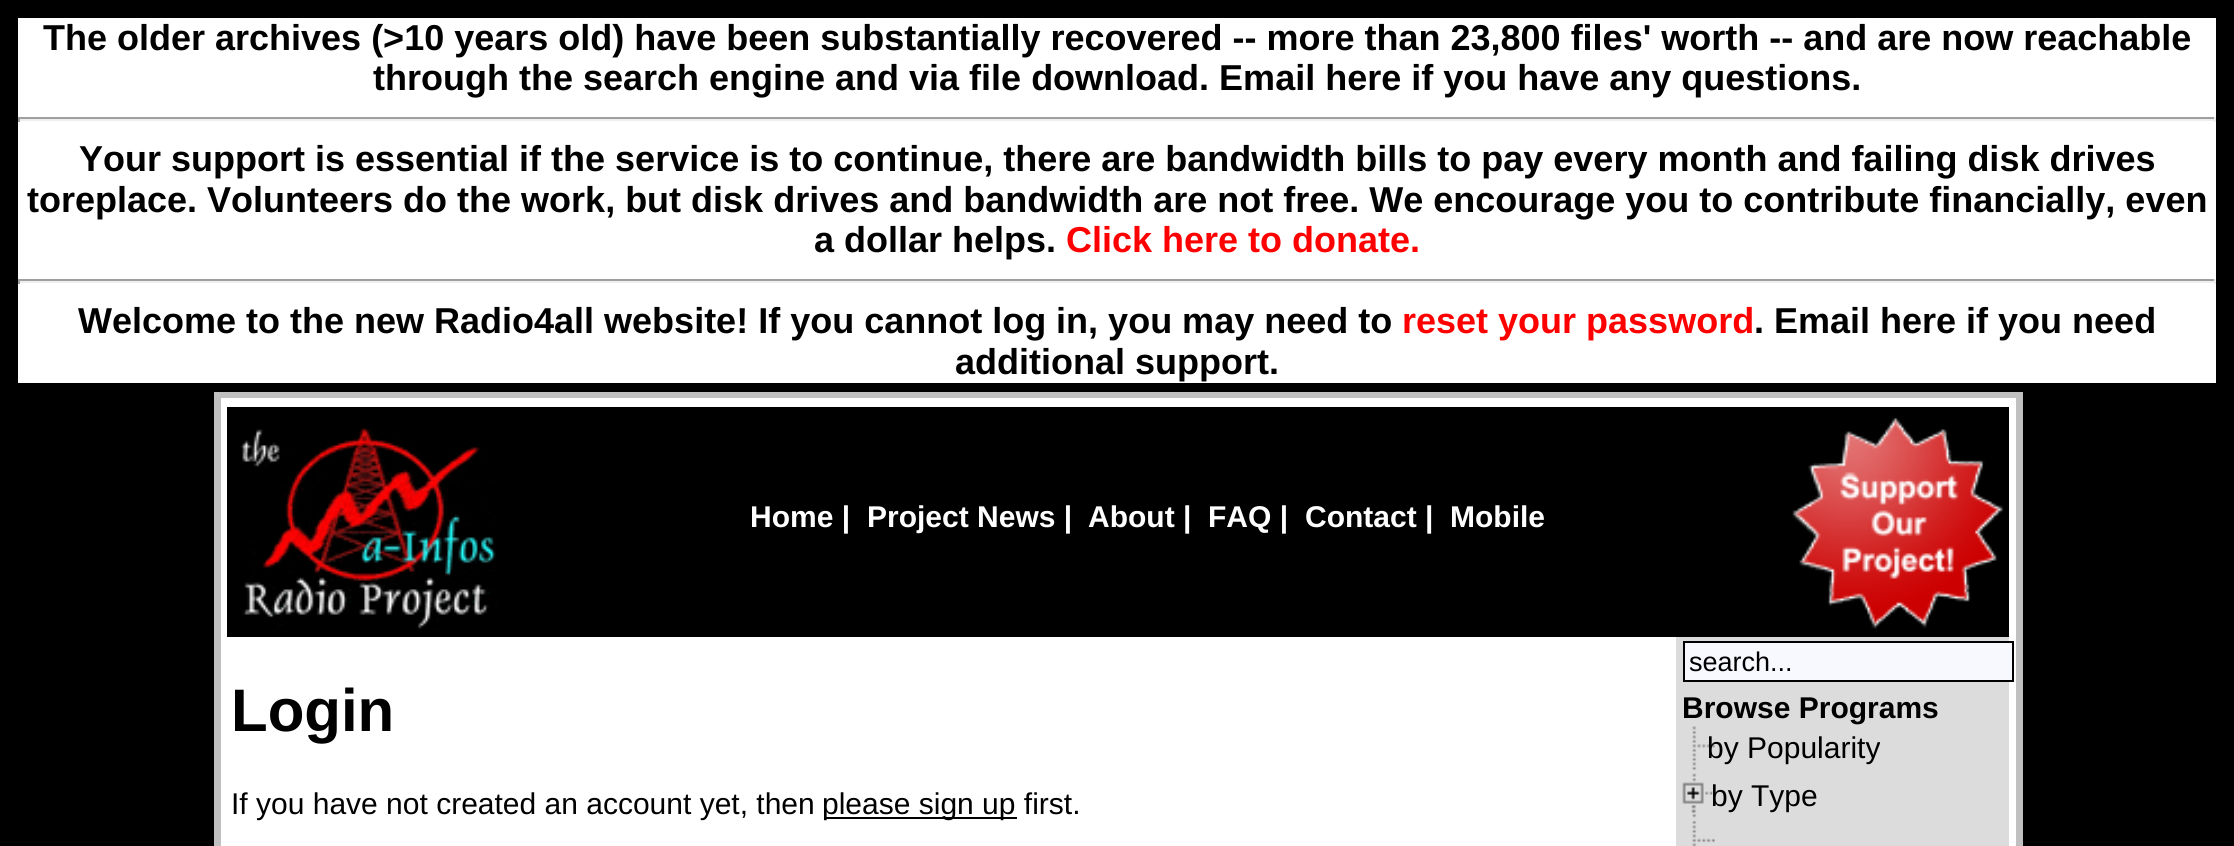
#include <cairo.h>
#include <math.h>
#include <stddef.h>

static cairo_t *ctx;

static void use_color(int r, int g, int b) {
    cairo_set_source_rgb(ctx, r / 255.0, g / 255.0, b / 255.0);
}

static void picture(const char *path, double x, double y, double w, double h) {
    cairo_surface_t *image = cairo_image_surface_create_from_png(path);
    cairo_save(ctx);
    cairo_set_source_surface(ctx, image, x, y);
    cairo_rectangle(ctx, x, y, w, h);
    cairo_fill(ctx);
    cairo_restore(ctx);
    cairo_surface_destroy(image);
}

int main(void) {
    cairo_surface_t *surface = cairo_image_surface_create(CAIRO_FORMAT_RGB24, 2234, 846);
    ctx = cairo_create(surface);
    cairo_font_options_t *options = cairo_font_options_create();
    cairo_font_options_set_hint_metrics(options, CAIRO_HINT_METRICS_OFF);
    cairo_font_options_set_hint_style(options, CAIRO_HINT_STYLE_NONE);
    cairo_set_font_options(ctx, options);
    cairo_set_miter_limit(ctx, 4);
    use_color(0, 0, 0);
    cairo_paint(ctx);
    use_color(255, 255, 255);
    cairo_rectangle(ctx, 18, 18, 2198, 365);
    cairo_fill(ctx);
    cairo_select_font_face(ctx, "Liberation Sans", CAIRO_FONT_SLANT_NORMAL, CAIRO_FONT_WEIGHT_BOLD);
    cairo_set_font_size(ctx, 36);
    use_color(0, 0, 0);
    cairo_move_to(ctx, 43, 50);
    cairo_show_text(ctx, "The older archives (>10 years old) have been substantially recovered -- more than 23,800 files' worth -- and are now reachable");
    cairo_move_to(ctx, 373, 90);
    cairo_show_text(ctx, "through the search engine and via file download. Email here if you have any questions.");
    use_color(159, 159, 159);
    cairo_rectangle(ctx, 18, 117, 2198, 2);
    cairo_fill(ctx);
    use_color(238, 238, 238);
    cairo_rectangle(ctx, 2214, 117, 2, 5);
    cairo_fill(ctx);
    cairo_rectangle(ctx, 18, 119, 2198, 2);
    cairo_fill(ctx);
    use_color(159, 159, 159);
    cairo_rectangle(ctx, 18, 117, 2, 5);
    cairo_fill(ctx);
    use_color(0, 0, 0);
    cairo_move_to(ctx, 79, 171);
    cairo_show_text(ctx, "Your support is essential if the service is to continue, there are bandwidth bills to pay every month and failing disk drives");
    cairo_move_to(ctx, 27, 212);
    cairo_show_text(ctx, "toreplace. Volunteers do the work, but disk drives and bandwidth are not free. We encourage you to contribute financially, even");
    cairo_move_to(ctx, 814, 252);
    cairo_show_text(ctx, "a dollar helps.");
    use_color(255, 0, 0);
    cairo_move_to(ctx, 1066, 252);
    cairo_show_text(ctx, "Click here to donate.");
    use_color(159, 159, 159);
    cairo_rectangle(ctx, 18, 279, 2198, 2);
    cairo_fill(ctx);
    use_color(238, 238, 238);
    cairo_rectangle(ctx, 2214, 279, 2, 5);
    cairo_fill(ctx);
    cairo_rectangle(ctx, 18, 281, 2198, 2);
    cairo_fill(ctx);
    use_color(159, 159, 159);
    cairo_rectangle(ctx, 18, 279, 2, 5);
    cairo_fill(ctx);
    use_color(0, 0, 0);
    cairo_move_to(ctx, 78, 333);
    cairo_show_text(ctx, "Welcome to the new Radio4all website! If you cannot log in, you may need to");
    use_color(255, 0, 0);
    cairo_move_to(ctx, 1402, 333);
    cairo_show_text(ctx, "reset your password");
    use_color(0, 0, 0);
    cairo_move_to(ctx, 1754, 333);
    cairo_show_text(ctx, ". Email here if you need");
    cairo_move_to(ctx, 955, 374);
    cairo_show_text(ctx, "additional support.");
    use_color(192, 192, 192);
    cairo_rectangle(ctx, 214, 392, 1809, 454);
    cairo_fill(ctx);
    use_color(255, 255, 255);
    cairo_rectangle(ctx, 221, 398, 1795, 448);
    cairo_fill(ctx);
    use_color(0, 0, 0);
    cairo_rectangle(ctx, 227, 407, 1782, 230);
    cairo_fill(ctx);
    picture("img1.png", 240, 427, 257, 205);
    cairo_set_font_size(ctx, 30);
    use_color(255, 255, 255);
    cairo_move_to(ctx, 750, 527);
    cairo_show_text(ctx, "Home |");
    cairo_move_to(ctx, 867, 527);
    cairo_show_text(ctx, "Project News |");
    cairo_move_to(ctx, 1088, 527);
    cairo_show_text(ctx, "About |");
    cairo_move_to(ctx, 1208, 527);
    cairo_show_text(ctx, "FAQ |");
    cairo_move_to(ctx, 1305, 527);
    cairo_show_text(ctx, "Contact |");
    cairo_move_to(ctx, 1450, 527);
    cairo_show_text(ctx, "Mobile");
    picture("img2.png", 1792, 418, 212, 211);
    cairo_set_font_size(ctx, 60);
    use_color(0, 0, 0);
    cairo_move_to(ctx, 231, 731);
    cairo_show_text(ctx, "Login");
    cairo_select_font_face(ctx, "Liberation Sans", CAIRO_FONT_SLANT_NORMAL, CAIRO_FONT_WEIGHT_NORMAL);
    cairo_set_font_size(ctx, 30);
    cairo_move_to(ctx, 231, 814);
    cairo_show_text(ctx, "If you have not created an account yet, then");
    cairo_rectangle(ctx, 824, 817, 193, 2);
    cairo_fill(ctx);
    cairo_move_to(ctx, 822, 814);
    cairo_show_text(ctx, "please sign up first.");
    use_color(220, 220, 220);
    cairo_rectangle(ctx, 1676, 637, 333, 209);
    cairo_fill(ctx);
    use_color(248, 248, 255);
    cairo_rectangle(ctx, 1684, 642, 329, 39);
    cairo_fill_preserve(ctx);
    use_color(0, 0, 0);
    cairo_stroke(ctx);
    cairo_set_font_size(ctx, 27);
    cairo_move_to(ctx, 1689, 671);
    cairo_show_text(ctx, "search...");
    cairo_select_font_face(ctx, "Liberation Sans", CAIRO_FONT_SLANT_NORMAL, CAIRO_FONT_WEIGHT_BOLD);
    cairo_set_font_size(ctx, 30);
    cairo_move_to(ctx, 1682, 718);
    cairo_show_text(ctx, "Browse Programs");
    picture("img3.png", 1692, 726, 23, 45);
    cairo_select_font_face(ctx, "Liberation Sans", CAIRO_FONT_SLANT_NORMAL, CAIRO_FONT_WEIGHT_NORMAL);
    cairo_move_to(ctx, 1707, 758);
    cairo_show_text(ctx, "by Popularity");
    picture("img4.png", 1692, 773, 5, 45);
    picture("img5.png", 1682, 782, 31, 31);
    cairo_move_to(ctx, 1711, 806);
    cairo_show_text(ctx, "by Type");
    picture("img6.png", 1692, 820, 23, 26);
    cairo_surface_write_to_png(surface, "result.png");
    cairo_font_options_destroy(options);
    cairo_destroy(ctx);
    cairo_surface_destroy(surface);
    return 0;
}
